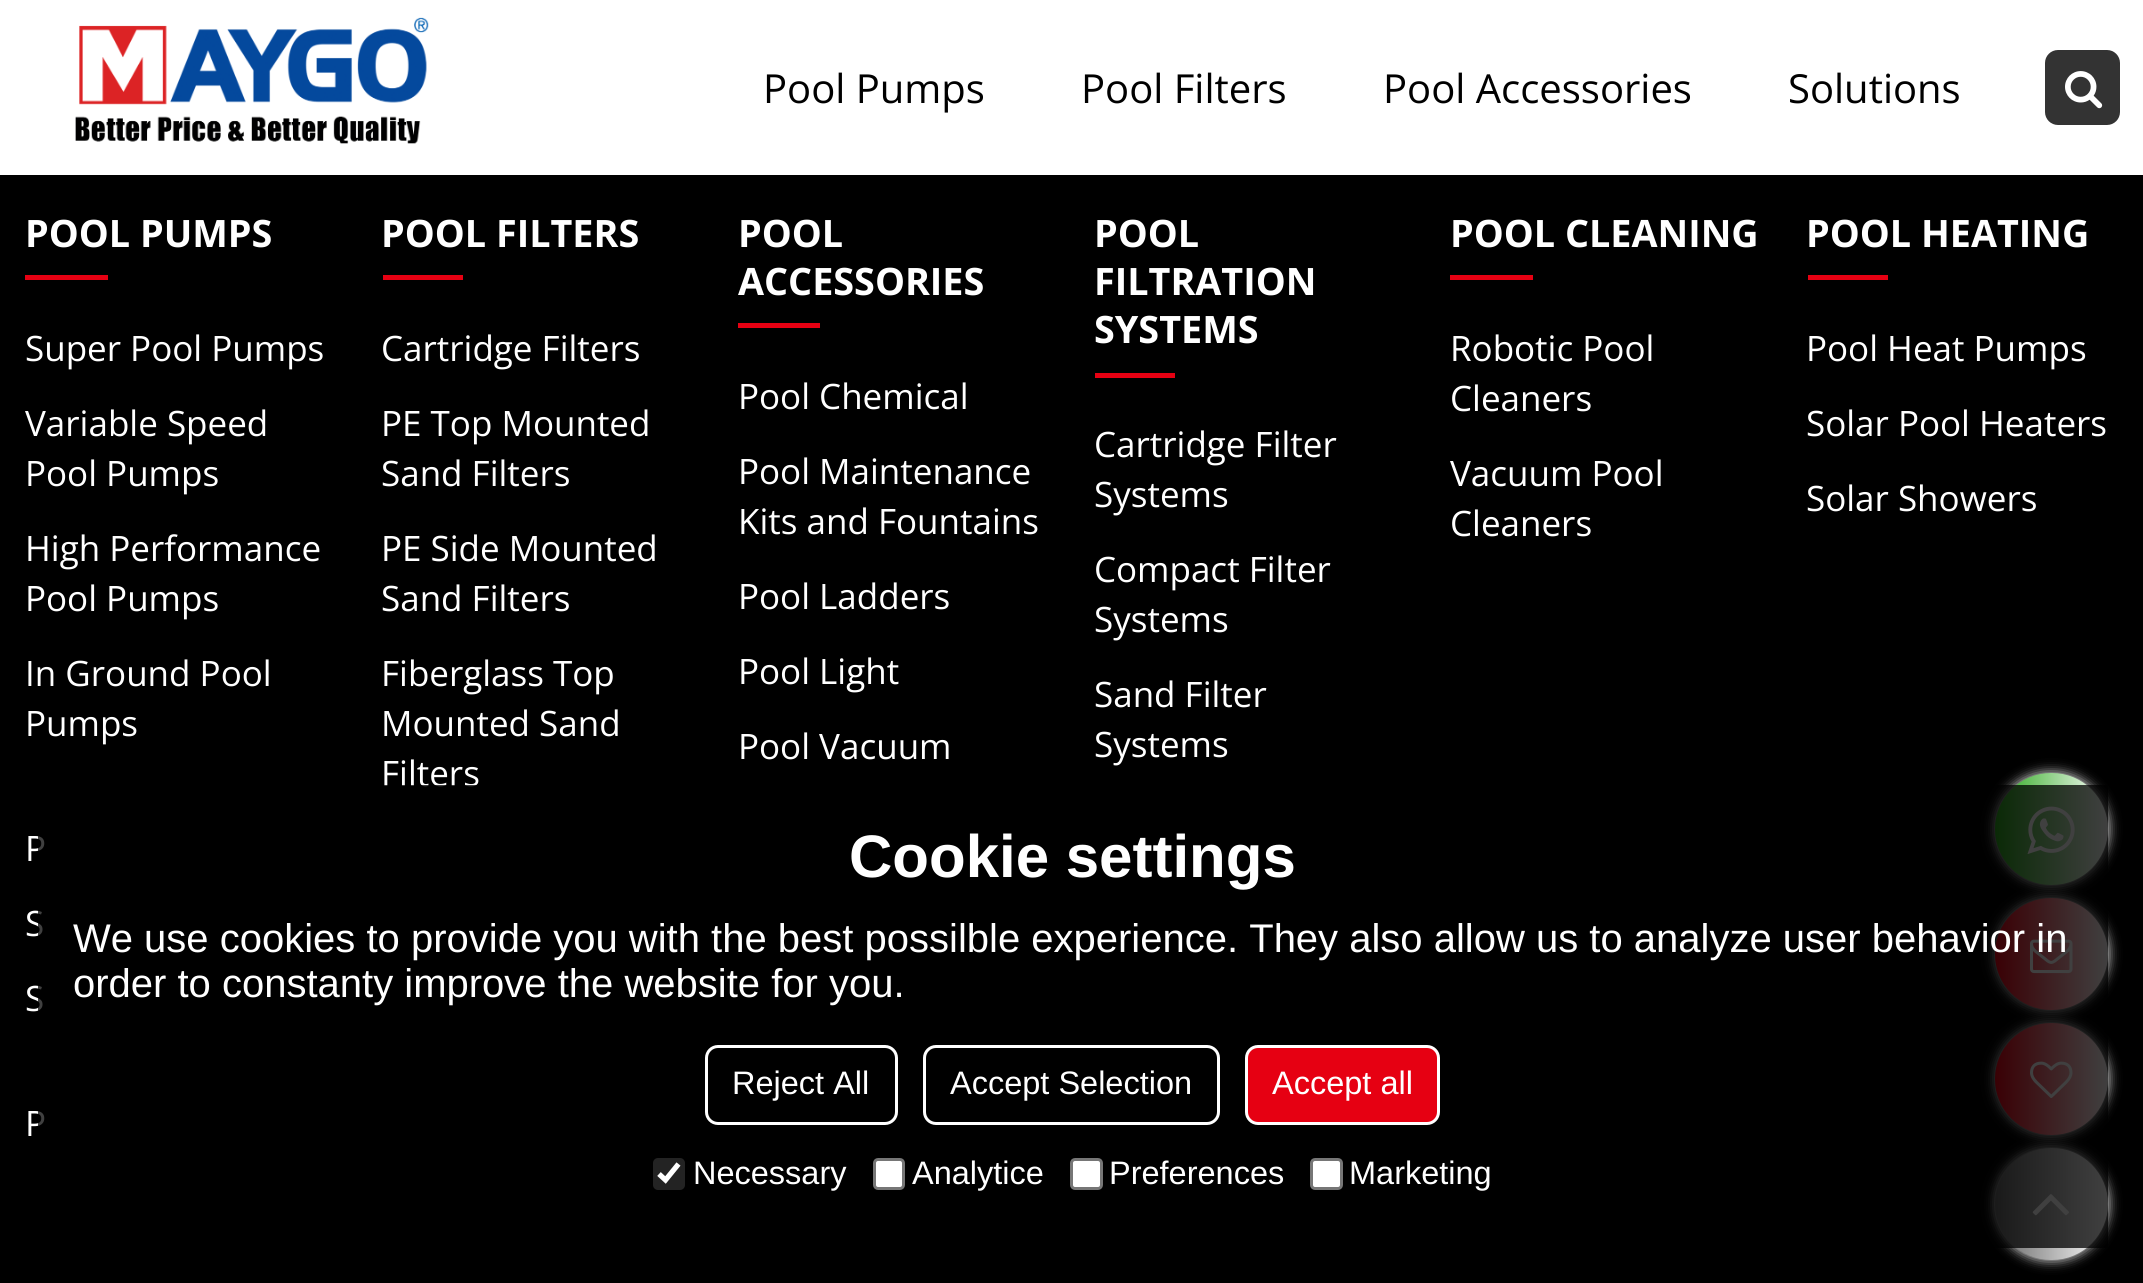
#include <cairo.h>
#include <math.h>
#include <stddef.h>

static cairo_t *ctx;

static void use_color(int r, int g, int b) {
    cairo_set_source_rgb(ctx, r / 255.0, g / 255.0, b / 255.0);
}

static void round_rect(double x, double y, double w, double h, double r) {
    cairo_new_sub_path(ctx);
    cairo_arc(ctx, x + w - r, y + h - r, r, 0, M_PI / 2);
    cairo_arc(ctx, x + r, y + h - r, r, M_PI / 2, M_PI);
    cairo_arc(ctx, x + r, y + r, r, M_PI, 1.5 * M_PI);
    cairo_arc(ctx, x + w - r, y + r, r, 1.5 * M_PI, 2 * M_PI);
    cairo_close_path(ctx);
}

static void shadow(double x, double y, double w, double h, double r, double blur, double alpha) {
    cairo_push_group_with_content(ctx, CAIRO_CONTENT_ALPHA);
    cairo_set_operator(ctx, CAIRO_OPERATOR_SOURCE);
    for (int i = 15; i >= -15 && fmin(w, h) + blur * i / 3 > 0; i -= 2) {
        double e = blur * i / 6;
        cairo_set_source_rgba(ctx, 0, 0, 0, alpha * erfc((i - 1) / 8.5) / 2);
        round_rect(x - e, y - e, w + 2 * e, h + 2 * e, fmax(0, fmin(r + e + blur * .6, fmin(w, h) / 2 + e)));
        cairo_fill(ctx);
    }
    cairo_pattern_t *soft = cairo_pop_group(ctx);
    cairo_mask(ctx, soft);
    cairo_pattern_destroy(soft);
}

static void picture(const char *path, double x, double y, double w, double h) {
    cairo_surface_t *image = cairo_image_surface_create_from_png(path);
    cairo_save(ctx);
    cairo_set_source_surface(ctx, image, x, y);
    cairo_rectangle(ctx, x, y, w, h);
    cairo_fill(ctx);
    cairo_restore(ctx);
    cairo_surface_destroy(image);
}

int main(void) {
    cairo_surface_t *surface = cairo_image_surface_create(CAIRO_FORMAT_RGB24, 2143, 1283);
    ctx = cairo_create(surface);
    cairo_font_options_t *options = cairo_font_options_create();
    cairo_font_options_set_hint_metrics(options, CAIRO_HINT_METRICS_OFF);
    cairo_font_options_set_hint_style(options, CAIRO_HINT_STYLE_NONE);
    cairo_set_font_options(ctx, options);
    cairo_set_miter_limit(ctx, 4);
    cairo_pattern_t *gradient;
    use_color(0, 0, 0);
    cairo_paint(ctx);
    use_color(255, 255, 255);
    cairo_rectangle(ctx, 0, 0, 2143, 175);
    cairo_fill(ctx);
    picture("img1.png", 75, 17, 354, 127);
    cairo_select_font_face(ctx, "Open Sans", CAIRO_FONT_SLANT_NORMAL, CAIRO_FONT_WEIGHT_NORMAL);
    cairo_set_font_size(ctx, 40);
    use_color(0, 0, 0);
    cairo_move_to(ctx, 763, 103);
    cairo_show_text(ctx, "Pool Pumps");
    cairo_move_to(ctx, 1081, 103);
    cairo_show_text(ctx, "Pool Filters");
    cairo_move_to(ctx, 1383, 103);
    cairo_show_text(ctx, "Pool Accessories");
    cairo_move_to(ctx, 1788, 103);
    cairo_show_text(ctx, "Solutions");
    use_color(51, 51, 51);
    round_rect(2045, 50, 75, 75, 13);
    cairo_fill(ctx);
    picture("img2.png", 2065, 71, 38, 38);
    cairo_select_font_face(ctx, "Open Sans", CAIRO_FONT_SLANT_NORMAL, CAIRO_FONT_WEIGHT_BOLD);
    cairo_set_font_size(ctx, 37.75);
    use_color(255, 255, 255);
    cairo_move_to(ctx, 25, 247);
    cairo_show_text(ctx, "POOL PUMPS");
    use_color(230, 0, 18);
    cairo_rectangle(ctx, 25, 275, 83, 5);
    cairo_fill(ctx);
    cairo_select_font_face(ctx, "Open Sans", CAIRO_FONT_SLANT_NORMAL, CAIRO_FONT_WEIGHT_NORMAL);
    cairo_set_font_size(ctx, 35);
    use_color(255, 255, 255);
    cairo_move_to(ctx, 25, 361);
    cairo_show_text(ctx, "Super Pool Pumps");
    cairo_move_to(ctx, 25, 436);
    cairo_show_text(ctx, "Variable Speed");
    cairo_move_to(ctx, 25, 486);
    cairo_show_text(ctx, "Pool Pumps");
    cairo_move_to(ctx, 25, 561);
    cairo_show_text(ctx, "High Performance");
    cairo_move_to(ctx, 25, 611);
    cairo_show_text(ctx, "Pool Pumps");
    cairo_move_to(ctx, 25, 686);
    cairo_show_text(ctx, "In Ground Pool");
    cairo_move_to(ctx, 25, 736);
    cairo_show_text(ctx, "Pumps");
    cairo_move_to(ctx, 25, 861);
    cairo_show_text(ctx, "P");
    cairo_move_to(ctx, 25, 936);
    cairo_show_text(ctx, "S");
    cairo_move_to(ctx, 25, 1011);
    cairo_show_text(ctx, "S");
    cairo_move_to(ctx, 25, 1136);
    cairo_show_text(ctx, "P");
    cairo_select_font_face(ctx, "Open Sans", CAIRO_FONT_SLANT_NORMAL, CAIRO_FONT_WEIGHT_BOLD);
    cairo_set_font_size(ctx, 37.75);
    cairo_move_to(ctx, 381, 247);
    cairo_show_text(ctx, "POOL FILTERS");
    use_color(230, 0, 18);
    cairo_rectangle(ctx, 383, 275, 80, 5);
    cairo_fill(ctx);
    cairo_select_font_face(ctx, "Open Sans", CAIRO_FONT_SLANT_NORMAL, CAIRO_FONT_WEIGHT_NORMAL);
    cairo_set_font_size(ctx, 35);
    use_color(255, 255, 255);
    cairo_move_to(ctx, 381, 361);
    cairo_show_text(ctx, "Cartridge Filters");
    cairo_move_to(ctx, 381, 436);
    cairo_show_text(ctx, "PE Top Mounted");
    cairo_move_to(ctx, 381, 486);
    cairo_show_text(ctx, "Sand Filters");
    cairo_move_to(ctx, 381, 561);
    cairo_show_text(ctx, "PE Side Mounted");
    cairo_move_to(ctx, 381, 611);
    cairo_show_text(ctx, "Sand Filters");
    cairo_move_to(ctx, 381, 686);
    cairo_show_text(ctx, "Fiberglass Top");
    cairo_move_to(ctx, 381, 736);
    cairo_show_text(ctx, "Mounted Sand");
    cairo_move_to(ctx, 381, 786);
    cairo_show_text(ctx, "Filters");
    cairo_select_font_face(ctx, "Open Sans", CAIRO_FONT_SLANT_NORMAL, CAIRO_FONT_WEIGHT_BOLD);
    cairo_set_font_size(ctx, 37.75);
    cairo_move_to(ctx, 738, 247);
    cairo_show_text(ctx, "POOL");
    cairo_move_to(ctx, 738, 295);
    cairo_show_text(ctx, "ACCESSORIES");
    use_color(230, 0, 18);
    cairo_rectangle(ctx, 738, 323, 82, 5);
    cairo_fill(ctx);
    cairo_select_font_face(ctx, "Open Sans", CAIRO_FONT_SLANT_NORMAL, CAIRO_FONT_WEIGHT_NORMAL);
    cairo_set_font_size(ctx, 35);
    use_color(255, 255, 255);
    cairo_move_to(ctx, 738, 409);
    cairo_show_text(ctx, "Pool Chemical");
    cairo_move_to(ctx, 738, 484);
    cairo_show_text(ctx, "Pool Maintenance");
    cairo_move_to(ctx, 738, 534);
    cairo_show_text(ctx, "Kits and Fountains");
    cairo_move_to(ctx, 738, 609);
    cairo_show_text(ctx, "Pool Ladders");
    cairo_move_to(ctx, 738, 684);
    cairo_show_text(ctx, "Pool Light");
    cairo_move_to(ctx, 738, 759);
    cairo_show_text(ctx, "Pool Vacuum");
    cairo_select_font_face(ctx, "Open Sans", CAIRO_FONT_SLANT_NORMAL, CAIRO_FONT_WEIGHT_BOLD);
    cairo_set_font_size(ctx, 37.75);
    cairo_move_to(ctx, 1094, 247);
    cairo_show_text(ctx, "POOL");
    cairo_move_to(ctx, 1094, 295);
    cairo_show_text(ctx, "FILTRATION");
    cairo_move_to(ctx, 1094, 343);
    cairo_show_text(ctx, "SYSTEMS");
    use_color(230, 0, 18);
    cairo_rectangle(ctx, 1095, 373, 80, 5);
    cairo_fill(ctx);
    cairo_select_font_face(ctx, "Open Sans", CAIRO_FONT_SLANT_NORMAL, CAIRO_FONT_WEIGHT_NORMAL);
    cairo_set_font_size(ctx, 35);
    use_color(255, 255, 255);
    cairo_move_to(ctx, 1094, 457);
    cairo_show_text(ctx, "Cartridge Filter");
    cairo_move_to(ctx, 1094, 507);
    cairo_show_text(ctx, "Systems");
    cairo_move_to(ctx, 1094, 582);
    cairo_show_text(ctx, "Compact Filter");
    cairo_move_to(ctx, 1094, 632);
    cairo_show_text(ctx, "Systems");
    cairo_move_to(ctx, 1094, 707);
    cairo_show_text(ctx, "Sand Filter");
    cairo_move_to(ctx, 1094, 757);
    cairo_show_text(ctx, "Systems");
    cairo_select_font_face(ctx, "Open Sans", CAIRO_FONT_SLANT_NORMAL, CAIRO_FONT_WEIGHT_BOLD);
    cairo_set_font_size(ctx, 37.75);
    cairo_move_to(ctx, 1450, 247);
    cairo_show_text(ctx, "POOL CLEANING");
    use_color(230, 0, 18);
    cairo_rectangle(ctx, 1450, 275, 83, 5);
    cairo_fill(ctx);
    cairo_select_font_face(ctx, "Open Sans", CAIRO_FONT_SLANT_NORMAL, CAIRO_FONT_WEIGHT_NORMAL);
    cairo_set_font_size(ctx, 35);
    use_color(255, 255, 255);
    cairo_move_to(ctx, 1450, 361);
    cairo_show_text(ctx, "Robotic Pool");
    cairo_move_to(ctx, 1450, 411);
    cairo_show_text(ctx, "Cleaners");
    cairo_move_to(ctx, 1450, 486);
    cairo_show_text(ctx, "Vacuum Pool");
    cairo_move_to(ctx, 1450, 536);
    cairo_show_text(ctx, "Cleaners");
    cairo_select_font_face(ctx, "Open Sans", CAIRO_FONT_SLANT_NORMAL, CAIRO_FONT_WEIGHT_BOLD);
    cairo_set_font_size(ctx, 37.75);
    cairo_move_to(ctx, 1806, 247);
    cairo_show_text(ctx, "POOL HEATING");
    use_color(230, 0, 18);
    cairo_rectangle(ctx, 1808, 275, 80, 5);
    cairo_fill(ctx);
    cairo_select_font_face(ctx, "Open Sans", CAIRO_FONT_SLANT_NORMAL, CAIRO_FONT_WEIGHT_NORMAL);
    cairo_set_font_size(ctx, 35);
    use_color(255, 255, 255);
    cairo_move_to(ctx, 1806, 361);
    cairo_show_text(ctx, "Pool Heat Pumps");
    cairo_move_to(ctx, 1806, 436);
    cairo_show_text(ctx, "Solar Pool Heaters");
    cairo_move_to(ctx, 1806, 511);
    cairo_show_text(ctx, "Solar Showers");
    use_color(238, 238, 238);
    shadow(1995, 773, 113, 112, 56, 6, 1);
    gradient = cairo_pattern_create_linear(1995, 829, 2108, 829);
    cairo_pattern_add_color_stop_rgba(gradient, 0, 0.161, 0.651, 0.102, 1);
    cairo_pattern_add_color_stop_rgba(gradient, 1, 1, 1, 1, 1);
    cairo_set_source(ctx, gradient);
    cairo_pattern_destroy(gradient);
    round_rect(1995, 773, 113, 112, 56);
    cairo_fill(ctx);
    picture("img3.png", 2027, 806, 48, 48);
    use_color(238, 238, 238);
    shadow(1995, 898, 113, 112, 56, 6, 1);
    gradient = cairo_pattern_create_linear(1995, 954, 2108, 954);
    cairo_pattern_add_color_stop_rgba(gradient, 0, 0.902, 0, 0.071, 1);
    cairo_pattern_add_color_stop_rgba(gradient, 1, 1, 1, 1, 1);
    cairo_set_source(ctx, gradient);
    cairo_pattern_destroy(gradient);
    round_rect(1995, 898, 113, 112, 56);
    cairo_fill(ctx);
    picture("img4.png", 2030, 939, 43, 35);
    use_color(238, 238, 238);
    shadow(1995, 1023, 113, 112, 56, 6, 1);
    gradient = cairo_pattern_create_linear(1995, 1079, 2108, 1079);
    cairo_pattern_add_color_stop_rgba(gradient, 0, 0.902, 0, 0.071, 1);
    cairo_pattern_add_color_stop_rgba(gradient, 1, 1, 1, 1, 1);
    cairo_set_source(ctx, gradient);
    cairo_pattern_destroy(gradient);
    round_rect(1995, 1023, 113, 112, 56);
    cairo_fill(ctx);
    picture("img5.png", 2030, 1061, 43, 37);
    use_color(238, 238, 238);
    shadow(1995, 1148, 113, 112, 56, 6, 1);
    gradient = cairo_pattern_create_linear(1995, 1204, 2108, 1204);
    cairo_pattern_add_color_stop_rgba(gradient, 0, 0.4, 0.4, 0.4, 1);
    cairo_pattern_add_color_stop_rgba(gradient, 1, 1, 1, 1, 1);
    cairo_set_source(ctx, gradient);
    cairo_pattern_destroy(gradient);
    round_rect(1995, 1148, 113, 112, 56);
    cairo_fill(ctx);
    picture("img6.png", 2032, 1194, 37, 22);
    cairo_set_source_rgba(ctx, 0, 0, 0, 0.75);
    cairo_rectangle(ctx, 38, 785, 2070, 463);
    cairo_fill(ctx);
    cairo_select_font_face(ctx, "Liberation Sans", CAIRO_FONT_SLANT_NORMAL, CAIRO_FONT_WEIGHT_BOLD);
    cairo_set_font_size(ctx, 60);
    use_color(255, 255, 255);
    cairo_move_to(ctx, 849, 877);
    cairo_show_text(ctx, "Cookie settings");
    cairo_select_font_face(ctx, "Liberation Sans", CAIRO_FONT_SLANT_NORMAL, CAIRO_FONT_WEIGHT_NORMAL);
    cairo_set_font_size(ctx, 40);
    cairo_move_to(ctx, 73, 952);
    cairo_show_text(ctx, "We use cookies to provide you with the best possilble experience. They also allow us to analyze user behavior in");
    cairo_move_to(ctx, 73, 997);
    cairo_show_text(ctx, "order to constanty improve the website for you.");
    round_rect(706.5, 1046.5, 190, 77, 11.5);
    cairo_set_line_width(ctx, 3);
    cairo_stroke(ctx);
    cairo_set_font_size(ctx, 32.5);
    cairo_move_to(ctx, 732, 1094);
    cairo_show_text(ctx, "Reject All");
    round_rect(924.5, 1046.5, 294, 77, 11.5);
    cairo_stroke(ctx);
    cairo_move_to(ctx, 950, 1094);
    cairo_show_text(ctx, "Accept Selection");
    use_color(230, 0, 18);
    round_rect(1246.5, 1046.5, 192, 77, 11.5);
    cairo_fill_preserve(ctx);
    use_color(255, 255, 255);
    cairo_stroke(ctx);
    cairo_move_to(ctx, 1272, 1094);
    cairo_show_text(ctx, "Accept all");
    use_color(35, 35, 35);
    round_rect(653, 1158, 32, 32, 5);
    cairo_fill(ctx);
    cairo_new_path(ctx);
    cairo_move_to(ctx, 659, 1174);
    cairo_line_to(ctx, 665.5, 1180);
    cairo_line_to(ctx, 678.5, 1164);
    use_color(255, 255, 255);
    cairo_set_line_width(ctx, 5.2);
    cairo_stroke(ctx);
    cairo_move_to(ctx, 693, 1184);
    cairo_show_text(ctx, "Necessary");
    round_rect(874.5, 1159.5, 29, 29, 3.5);
    cairo_fill_preserve(ctx);
    use_color(118, 118, 118);
    cairo_set_line_width(ctx, 3);
    cairo_stroke(ctx);
    use_color(255, 255, 255);
    cairo_move_to(ctx, 912, 1184);
    cairo_show_text(ctx, "Analytice");
    round_rect(1071.5, 1159.5, 30, 29, 3.5);
    cairo_fill_preserve(ctx);
    use_color(118, 118, 118);
    cairo_stroke(ctx);
    use_color(255, 255, 255);
    cairo_move_to(ctx, 1109, 1184);
    cairo_show_text(ctx, "Preferences");
    round_rect(1311.5, 1159.5, 30, 29, 3.5);
    cairo_fill_preserve(ctx);
    use_color(118, 118, 118);
    cairo_stroke(ctx);
    use_color(255, 255, 255);
    cairo_move_to(ctx, 1349, 1184);
    cairo_show_text(ctx, "Marketing");
    cairo_surface_write_to_png(surface, "result.png");
    cairo_font_options_destroy(options);
    cairo_destroy(ctx);
    cairo_surface_destroy(surface);
    return 0;
}
